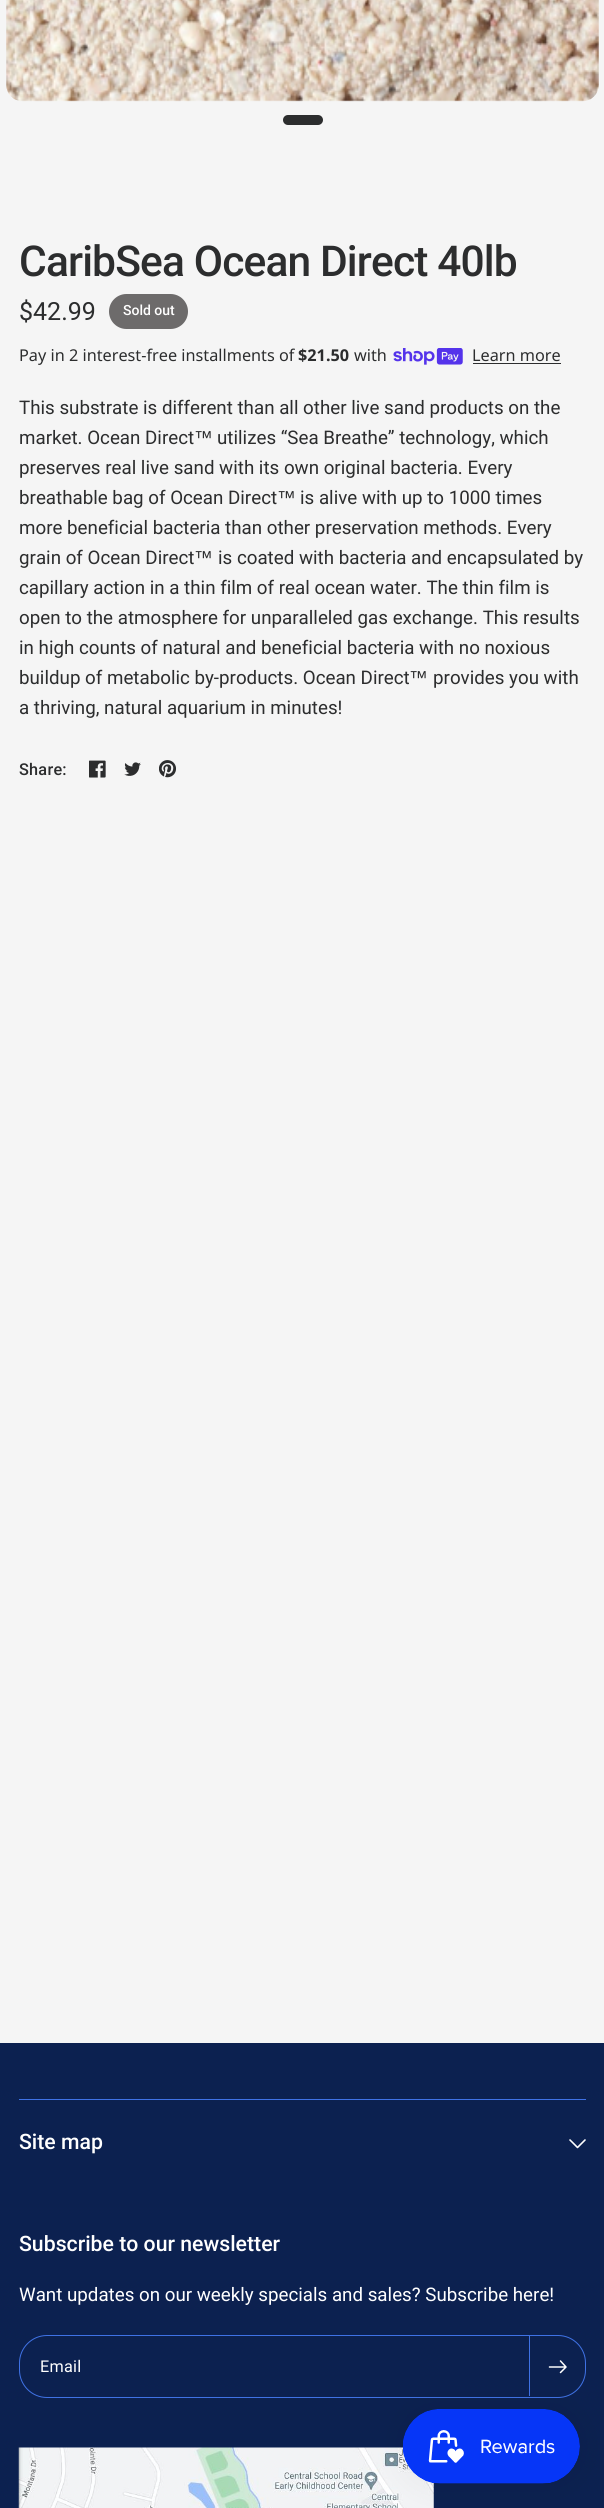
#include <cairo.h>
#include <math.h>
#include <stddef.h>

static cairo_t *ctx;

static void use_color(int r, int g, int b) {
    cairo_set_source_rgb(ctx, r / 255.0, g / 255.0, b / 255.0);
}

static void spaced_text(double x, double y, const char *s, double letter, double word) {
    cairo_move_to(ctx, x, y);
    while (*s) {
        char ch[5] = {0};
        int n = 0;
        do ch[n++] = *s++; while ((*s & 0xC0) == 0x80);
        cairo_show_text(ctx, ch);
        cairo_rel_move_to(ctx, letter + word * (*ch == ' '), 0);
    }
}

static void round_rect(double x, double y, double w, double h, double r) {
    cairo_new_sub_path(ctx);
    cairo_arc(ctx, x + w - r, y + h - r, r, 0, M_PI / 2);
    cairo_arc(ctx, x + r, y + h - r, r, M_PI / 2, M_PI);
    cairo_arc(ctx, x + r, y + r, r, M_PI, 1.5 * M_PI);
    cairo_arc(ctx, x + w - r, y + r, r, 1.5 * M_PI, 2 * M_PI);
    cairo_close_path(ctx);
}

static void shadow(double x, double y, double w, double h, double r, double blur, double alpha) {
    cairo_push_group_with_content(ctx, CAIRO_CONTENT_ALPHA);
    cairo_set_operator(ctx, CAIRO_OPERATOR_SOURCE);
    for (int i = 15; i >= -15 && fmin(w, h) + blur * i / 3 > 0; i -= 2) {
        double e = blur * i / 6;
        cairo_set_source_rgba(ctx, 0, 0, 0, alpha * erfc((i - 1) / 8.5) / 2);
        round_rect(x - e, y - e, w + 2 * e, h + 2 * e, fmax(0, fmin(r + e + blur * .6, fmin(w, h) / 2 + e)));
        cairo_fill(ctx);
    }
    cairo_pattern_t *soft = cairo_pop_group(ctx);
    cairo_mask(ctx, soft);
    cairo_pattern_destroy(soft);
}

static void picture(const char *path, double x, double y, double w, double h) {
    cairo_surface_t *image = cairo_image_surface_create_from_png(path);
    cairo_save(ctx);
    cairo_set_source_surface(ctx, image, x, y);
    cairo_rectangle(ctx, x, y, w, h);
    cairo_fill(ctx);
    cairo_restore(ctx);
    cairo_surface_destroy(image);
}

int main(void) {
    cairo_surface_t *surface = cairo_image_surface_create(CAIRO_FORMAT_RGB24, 604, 2508);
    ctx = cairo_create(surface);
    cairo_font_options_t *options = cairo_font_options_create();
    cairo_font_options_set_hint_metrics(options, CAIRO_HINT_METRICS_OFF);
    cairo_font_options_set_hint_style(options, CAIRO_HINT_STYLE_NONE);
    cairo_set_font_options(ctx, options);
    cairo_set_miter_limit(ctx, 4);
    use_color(12, 33, 80);
    cairo_paint(ctx);
    use_color(245, 245, 245);
    cairo_rectangle(ctx, 0, 0, 604, 2043);
    cairo_fill(ctx);
    picture("img1.png", 6, 0, 593, 102);
    use_color(44, 45, 46);
    round_rect(283, 115, 40, 10, 5);
    cairo_fill(ctx);
    cairo_select_font_face(ctx, "Roboto Medium", CAIRO_FONT_SLANT_NORMAL, CAIRO_FONT_WEIGHT_NORMAL);
    cairo_set_font_size(ctx, 42.5);
    spaced_text(19, 276, "CaribSea Ocean Direct 40lb", -0.85, 0);
    cairo_select_font_face(ctx, "Roboto", CAIRO_FONT_SLANT_NORMAL, CAIRO_FONT_WEIGHT_NORMAL);
    cairo_set_font_size(ctx, 25);
    cairo_move_to(ctx, 19, 320);
    cairo_show_text(ctx, "$42.99");
    use_color(109, 107, 107);
    round_rect(109, 294, 79, 35, 17.5);
    cairo_fill(ctx);
    cairo_select_font_face(ctx, "Roboto Medium", CAIRO_FONT_SLANT_NORMAL, CAIRO_FONT_WEIGHT_NORMAL);
    cairo_set_font_size(ctx, 14);
    use_color(255, 255, 255);
    cairo_move_to(ctx, 123, 315);
    cairo_show_text(ctx, "Sold out");
    cairo_select_font_face(ctx, "Noto Sans", CAIRO_FONT_SLANT_NORMAL, CAIRO_FONT_WEIGHT_NORMAL);
    cairo_set_font_size(ctx, 16.25);
    use_color(44, 45, 46);
    cairo_move_to(ctx, 19, 361);
    cairo_show_text(ctx, "Pay in 2 interest-free installments of");
    cairo_select_font_face(ctx, "Noto Sans", CAIRO_FONT_SLANT_NORMAL, CAIRO_FONT_WEIGHT_BOLD);
    cairo_move_to(ctx, 298, 361);
    cairo_show_text(ctx, "$21.50");
    cairo_select_font_face(ctx, "Noto Sans", CAIRO_FONT_SLANT_NORMAL, CAIRO_FONT_WEIGHT_NORMAL);
    cairo_move_to(ctx, 354, 361);
    cairo_show_text(ctx, "with");
    picture("img2.png", 393, 348, 70, 17);
    cairo_move_to(ctx, 472, 361);
    cairo_show_text(ctx, "Learn more");
    cairo_rectangle(ctx, 473, 363, 88, 1);
    cairo_fill(ctx);
    cairo_select_font_face(ctx, "Roboto", CAIRO_FONT_SLANT_NORMAL, CAIRO_FONT_WEIGHT_NORMAL);
    cairo_set_font_size(ctx, 18.75);
    cairo_move_to(ctx, 19, 414);
    cairo_show_text(ctx, "This substrate is different than all other live sand products on the");
    cairo_move_to(ctx, 19, 444);
    cairo_show_text(ctx, "market. Ocean Direct");
    cairo_select_font_face(ctx, "Liberation Sans", CAIRO_FONT_SLANT_NORMAL, CAIRO_FONT_WEIGHT_NORMAL);
    cairo_move_to(ctx, 194, 444);
    cairo_show_text(ctx, "™");
    cairo_select_font_face(ctx, "Roboto", CAIRO_FONT_SLANT_NORMAL, CAIRO_FONT_WEIGHT_NORMAL);
    cairo_move_to(ctx, 217, 444);
    cairo_show_text(ctx, "utilizes “Sea Breathe” technology, which");
    cairo_move_to(ctx, 19, 474);
    cairo_show_text(ctx, "preserves real live sand with its own original bacteria. Every");
    cairo_move_to(ctx, 19, 504);
    cairo_show_text(ctx, "breathable bag of Ocean Direct");
    cairo_select_font_face(ctx, "Liberation Sans", CAIRO_FONT_SLANT_NORMAL, CAIRO_FONT_WEIGHT_NORMAL);
    cairo_move_to(ctx, 277, 504);
    cairo_show_text(ctx, "™");
    cairo_select_font_face(ctx, "Roboto", CAIRO_FONT_SLANT_NORMAL, CAIRO_FONT_WEIGHT_NORMAL);
    cairo_move_to(ctx, 300, 504);
    cairo_show_text(ctx, "is alive with up to 1000 times");
    cairo_move_to(ctx, 19, 534);
    cairo_show_text(ctx, "more beneficial bacteria than other preservation methods. Every");
    cairo_move_to(ctx, 19, 564);
    cairo_show_text(ctx, "grain of Ocean Direct");
    cairo_select_font_face(ctx, "Liberation Sans", CAIRO_FONT_SLANT_NORMAL, CAIRO_FONT_WEIGHT_NORMAL);
    cairo_move_to(ctx, 194, 564);
    cairo_show_text(ctx, "™");
    cairo_select_font_face(ctx, "Roboto", CAIRO_FONT_SLANT_NORMAL, CAIRO_FONT_WEIGHT_NORMAL);
    cairo_move_to(ctx, 218, 564);
    cairo_show_text(ctx, "is coated with bacteria and encapsulated by");
    cairo_move_to(ctx, 19, 594);
    cairo_show_text(ctx, "capillary action in a thin film of real ocean water. The thin film is");
    cairo_move_to(ctx, 19, 624);
    cairo_show_text(ctx, "open to the atmosphere for unparalleled gas exchange. This results");
    cairo_move_to(ctx, 19, 654);
    cairo_show_text(ctx, "in high counts of natural and beneficial bacteria with no noxious");
    cairo_move_to(ctx, 19, 684);
    cairo_show_text(ctx, "buildup of metabolic by‑products. Ocean Direct");
    cairo_select_font_face(ctx, "Liberation Sans", CAIRO_FONT_SLANT_NORMAL, CAIRO_FONT_WEIGHT_NORMAL);
    cairo_move_to(ctx, 409, 684);
    cairo_show_text(ctx, "™");
    cairo_select_font_face(ctx, "Roboto", CAIRO_FONT_SLANT_NORMAL, CAIRO_FONT_WEIGHT_NORMAL);
    cairo_move_to(ctx, 433, 684);
    cairo_show_text(ctx, "provides you with");
    cairo_move_to(ctx, 19, 714);
    cairo_show_text(ctx, "a thriving, natural aquarium in minutes!");
    cairo_select_font_face(ctx, "Roboto Medium", CAIRO_FONT_SLANT_NORMAL, CAIRO_FONT_WEIGHT_NORMAL);
    cairo_set_font_size(ctx, 16.25);
    spaced_text(19, 775, "Share:", 0.25, 0);
    picture("img3.png", 89, 760, 17, 18);
    picture("img4.png", 124, 762, 17, 14);
    picture("img5.png", 159, 760, 17, 18);
    use_color(63, 114, 229);
    cairo_rectangle(ctx, 19, 2099, 567, 1);
    cairo_fill(ctx);
    cairo_set_font_size(ctx, 21.25);
    use_color(255, 255, 255);
    cairo_move_to(ctx, 19, 2149);
    cairo_show_text(ctx, "Site map");
    cairo_new_path(ctx);
    cairo_move_to(ctx, 585, 2140);
    cairo_line_to(ctx, 577.5, 2147.5);
    cairo_line_to(ctx, 570, 2140);
    cairo_set_line_width(ctx, 1.6);
    cairo_set_line_cap(ctx, CAIRO_LINE_CAP_ROUND);
    cairo_set_line_join(ctx, CAIRO_LINE_JOIN_ROUND);
    cairo_stroke(ctx);
    cairo_move_to(ctx, 19, 2251);
    cairo_show_text(ctx, "Subscribe to our newsletter");
    cairo_select_font_face(ctx, "Roboto", CAIRO_FONT_SLANT_NORMAL, CAIRO_FONT_WEIGHT_NORMAL);
    cairo_set_font_size(ctx, 18.75);
    cairo_move_to(ctx, 19, 2301);
    cairo_show_text(ctx, "Want updates on our weekly specials and sales? Subscribe here!");
    round_rect(19.5, 2335.5, 566, 62, 27.5);
    use_color(63, 114, 229);
    cairo_set_line_width(ctx, 1);
    cairo_set_line_cap(ctx, CAIRO_LINE_CAP_BUTT);
    cairo_set_line_join(ctx, CAIRO_LINE_JOIN_MITER);
    cairo_stroke(ctx);
    cairo_set_font_size(ctx, 16.25);
    use_color(255, 255, 255);
    spaced_text(40, 2372, "Email", 0.25, 0);
    use_color(63, 114, 229);
    cairo_rectangle(ctx, 529, 2336, 1, 60);
    cairo_fill(ctx);
    cairo_new_path(ctx);
    cairo_move_to(ctx, 549.5, 2367);
    cairo_line_to(ctx, 564.5, 2367);
    cairo_move_to(ctx, 560.5, 2361);
    cairo_line_to(ctx, 566, 2367);
    cairo_line_to(ctx, 560.5, 2372.5);
    use_color(255, 255, 255);
    cairo_set_line_width(ctx, 1.5);
    cairo_set_line_cap(ctx, CAIRO_LINE_CAP_ROUND);
    cairo_set_line_join(ctx, CAIRO_LINE_JOIN_ROUND);
    cairo_stroke(ctx);
    picture("img6.png", 18, 2447, 416, 61);
    use_color(0, 0, 0);
    shadow(403, 2409, 177, 75, 37.5, 15.5, 0.05);
    picture("img7.png", 402, 2409, 178, 75);
    cairo_surface_write_to_png(surface, "result.png");
    cairo_font_options_destroy(options);
    cairo_destroy(ctx);
    cairo_surface_destroy(surface);
    return 0;
}
